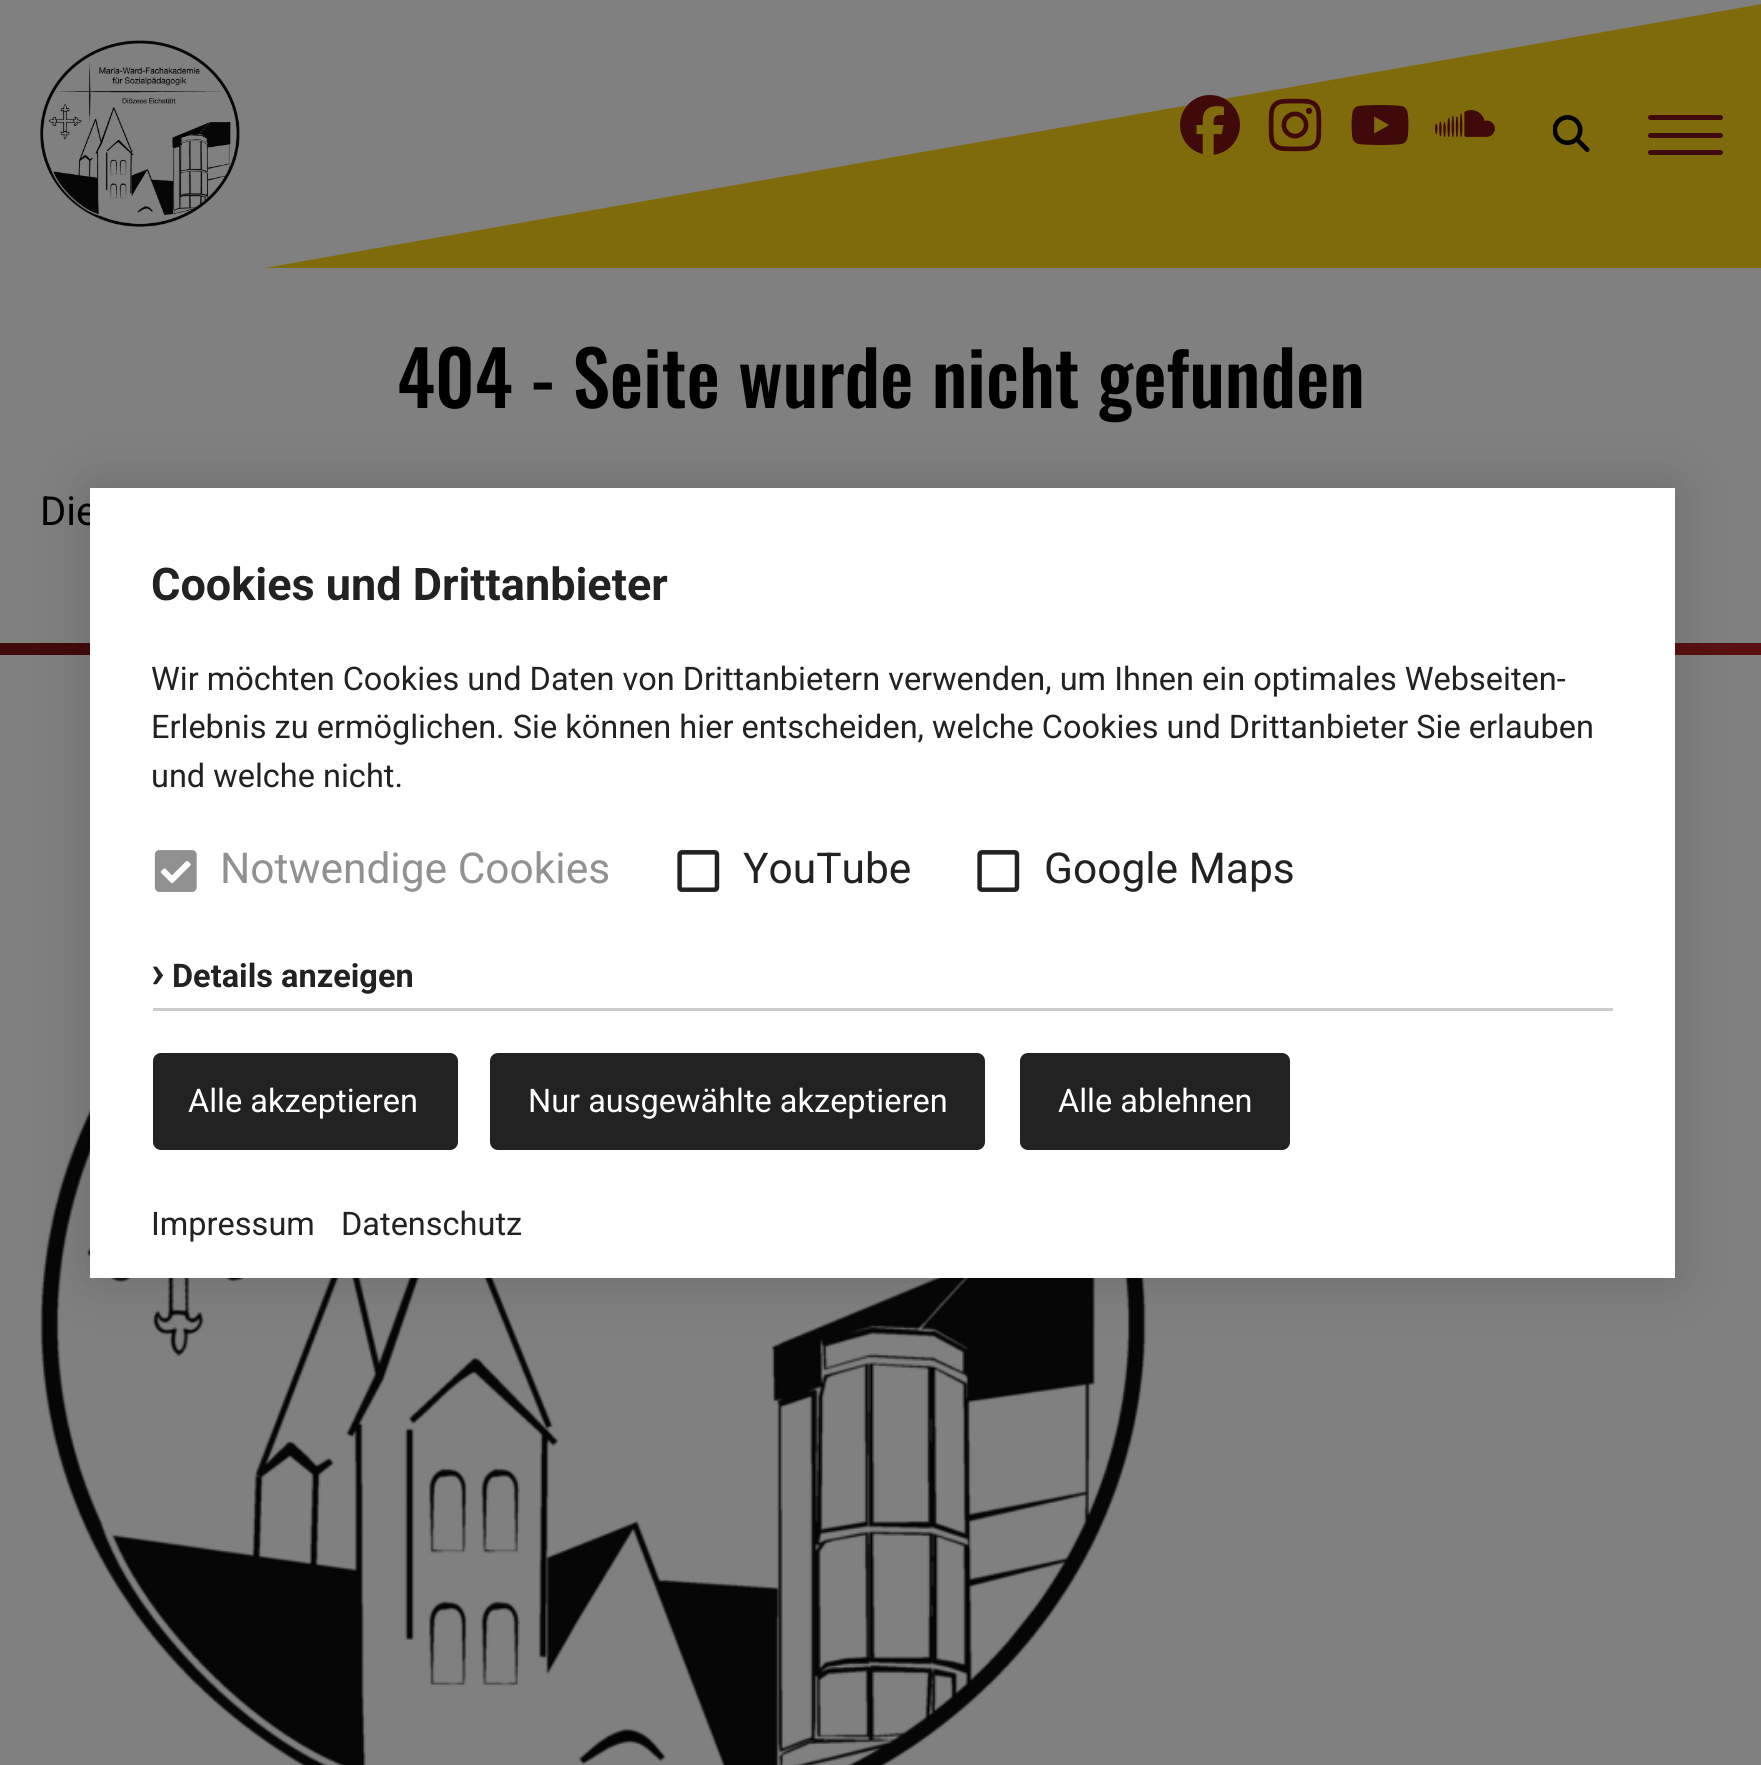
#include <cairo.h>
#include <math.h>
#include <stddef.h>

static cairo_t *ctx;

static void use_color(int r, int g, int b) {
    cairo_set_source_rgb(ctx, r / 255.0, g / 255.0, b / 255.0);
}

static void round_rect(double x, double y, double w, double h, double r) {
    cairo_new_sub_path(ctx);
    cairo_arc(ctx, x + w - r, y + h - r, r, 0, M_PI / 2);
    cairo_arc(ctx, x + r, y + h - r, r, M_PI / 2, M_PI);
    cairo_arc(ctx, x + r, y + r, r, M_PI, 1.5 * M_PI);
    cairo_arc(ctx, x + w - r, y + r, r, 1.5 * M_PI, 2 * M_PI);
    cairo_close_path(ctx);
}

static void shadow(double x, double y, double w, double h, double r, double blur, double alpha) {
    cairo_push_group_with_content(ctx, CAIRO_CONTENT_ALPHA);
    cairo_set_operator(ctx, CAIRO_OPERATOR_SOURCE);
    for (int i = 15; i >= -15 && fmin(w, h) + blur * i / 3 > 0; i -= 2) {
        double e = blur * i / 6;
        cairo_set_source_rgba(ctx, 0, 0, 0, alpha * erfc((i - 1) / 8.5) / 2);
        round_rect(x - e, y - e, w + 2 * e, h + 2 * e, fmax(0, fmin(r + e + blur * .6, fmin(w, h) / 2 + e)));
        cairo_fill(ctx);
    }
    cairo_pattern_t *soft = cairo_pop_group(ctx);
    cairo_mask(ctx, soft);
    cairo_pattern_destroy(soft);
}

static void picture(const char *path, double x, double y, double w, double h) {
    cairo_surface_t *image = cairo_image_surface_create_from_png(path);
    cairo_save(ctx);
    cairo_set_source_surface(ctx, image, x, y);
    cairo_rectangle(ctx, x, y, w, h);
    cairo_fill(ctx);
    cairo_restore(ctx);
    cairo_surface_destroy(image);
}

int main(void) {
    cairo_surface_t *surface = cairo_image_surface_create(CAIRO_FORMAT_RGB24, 1761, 1765);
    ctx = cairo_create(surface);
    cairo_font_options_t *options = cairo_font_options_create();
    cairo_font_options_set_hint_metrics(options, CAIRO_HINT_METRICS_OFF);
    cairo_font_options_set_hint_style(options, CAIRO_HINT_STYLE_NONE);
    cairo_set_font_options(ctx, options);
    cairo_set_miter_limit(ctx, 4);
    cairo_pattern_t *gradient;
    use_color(128, 128, 128);
    cairo_paint(ctx);
    cairo_save(ctx);
    cairo_rectangle(ctx, 265, 0, 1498, 268);
    cairo_clip(ctx);
    use_color(128, 107, 12);
    cairo_new_path(ctx);
    cairo_move_to(ctx, 264, 268);
    cairo_line_to(ctx, 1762, 4);
    cairo_line_to(ctx, 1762, 404);
    cairo_line_to(ctx, 264, 668);
    cairo_close_path(ctx);
    cairo_fill(ctx);
    cairo_restore(ctx);
    picture("img1.png", 40, 40, 200, 187);
    picture("img2.png", 1180, 95, 60, 60);
    picture("img3.png", 1268, 98, 54, 54);
    picture("img4.png", 1351, 105, 58, 40);
    picture("img5.png", 1435, 110, 60, 27);
    picture("img6.png", 1553, 115, 37, 37);
    use_color(65, 10, 10);
    round_rect(1648, 133, 75, 5, 2.5);
    cairo_fill(ctx);
    round_rect(1648, 115, 75, 5, 2.5);
    cairo_fill(ctx);
    round_rect(1648, 150, 75, 5, 2.5);
    cairo_fill(ctx);
    cairo_select_font_face(ctx, "Oswald Medium", CAIRO_FONT_SLANT_NORMAL, CAIRO_FONT_WEIGHT_NORMAL);
    cairo_set_font_size(ctx, 75);
    use_color(0, 0, 0);
    cairo_move_to(ctx, 397, 408);
    cairo_show_text(ctx, "404 - Seite wurde nicht gefunden");
    cairo_select_font_face(ctx, "Roboto", CAIRO_FONT_SLANT_NORMAL, CAIRO_FONT_WEIGHT_NORMAL);
    cairo_set_font_size(ctx, 40);
    cairo_move_to(ctx, 40, 525);
    cairo_show_text(ctx, "Die");
    gradient = cairo_pattern_create_linear(0, 649, 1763, 649);
    cairo_pattern_add_color_stop_rgba(gradient, 0, 0.255, 0.039, 0.039, 1);
    cairo_pattern_add_color_stop_rgba(gradient, 1, 0.353, 0.063, 0.063, 1);
    cairo_set_source(ctx, gradient);
    cairo_pattern_destroy(gradient);
    cairo_rectangle(ctx, 0, 643, 1761, 12);
    cairo_fill(ctx);
    picture("img7.png", 40, 804, 1107, 961);
    use_color(0, 0, 0);
    shadow(90, 488, 1585, 790, 0, 31, 0.15);
    use_color(255, 255, 255);
    cairo_rectangle(ctx, 90, 488, 1585, 790);
    cairo_fill(ctx);
    cairo_select_font_face(ctx, "Roboto", CAIRO_FONT_SLANT_NORMAL, CAIRO_FONT_WEIGHT_BOLD);
    cairo_set_font_size(ctx, 45);
    use_color(34, 34, 34);
    cairo_move_to(ctx, 151, 600);
    cairo_show_text(ctx, "Cookies und Drittanbieter");
    cairo_select_font_face(ctx, "Roboto", CAIRO_FONT_SLANT_NORMAL, CAIRO_FONT_WEIGHT_NORMAL);
    cairo_set_font_size(ctx, 32.5);
    cairo_move_to(ctx, 151, 690);
    cairo_show_text(ctx, "Wir möchten Cookies und Daten von Drittanbietern verwenden, um Ihnen ein optimales Webseiten-");
    cairo_move_to(ctx, 151, 738);
    cairo_show_text(ctx, "Erlebnis zu ermöglichen. Sie können hier entscheiden, welche Cookies und Drittanbieter Sie erlauben");
    cairo_move_to(ctx, 151, 787);
    cairo_show_text(ctx, "und welche nicht.");
    picture("img8.png", 154, 850, 43, 42);
    cairo_set_font_size(ctx, 42.5);
    use_color(145, 145, 145);
    cairo_move_to(ctx, 220, 883);
    cairo_show_text(ctx, "Notwendige Cookies");
    picture("img9.png", 677, 850, 43, 42);
    use_color(34, 34, 34);
    cairo_move_to(ctx, 743, 883);
    cairo_show_text(ctx, "YouTube");
    picture("img9.png", 977, 850, 43, 42);
    cairo_move_to(ctx, 1044, 883);
    cairo_show_text(ctx, "Google Maps");
    cairo_select_font_face(ctx, "Roboto", CAIRO_FONT_SLANT_NORMAL, CAIRO_FONT_WEIGHT_BOLD);
    cairo_set_font_size(ctx, 45);
    cairo_move_to(ctx, 151, 987);
    cairo_show_text(ctx, "›");
    cairo_set_font_size(ctx, 32.5);
    cairo_move_to(ctx, 172, 987);
    cairo_show_text(ctx, "Details anzeigen");
    use_color(204, 204, 204);
    cairo_rectangle(ctx, 153, 1008, 1460, 3);
    cairo_fill(ctx);
    use_color(34, 34, 34);
    round_rect(153, 1053, 305, 97, 8);
    cairo_fill(ctx);
    cairo_select_font_face(ctx, "Roboto", CAIRO_FONT_SLANT_NORMAL, CAIRO_FONT_WEIGHT_NORMAL);
    use_color(255, 255, 255);
    cairo_move_to(ctx, 188, 1112);
    cairo_show_text(ctx, "Alle akzeptieren");
    use_color(34, 34, 34);
    round_rect(490, 1053, 495, 97, 8);
    cairo_fill(ctx);
    use_color(255, 255, 255);
    cairo_move_to(ctx, 528, 1112);
    cairo_show_text(ctx, "Nur ausgewählte akzeptieren");
    use_color(34, 34, 34);
    round_rect(1020, 1053, 270, 97, 8);
    cairo_fill(ctx);
    use_color(255, 255, 255);
    cairo_move_to(ctx, 1058, 1112);
    cairo_show_text(ctx, "Alle ablehnen");
    use_color(34, 34, 34);
    cairo_move_to(ctx, 151, 1235);
    cairo_show_text(ctx, "Impressum");
    cairo_move_to(ctx, 341, 1235);
    cairo_show_text(ctx, "Datenschutz");
    cairo_surface_write_to_png(surface, "result.png");
    cairo_font_options_destroy(options);
    cairo_destroy(ctx);
    cairo_surface_destroy(surface);
    return 0;
}
